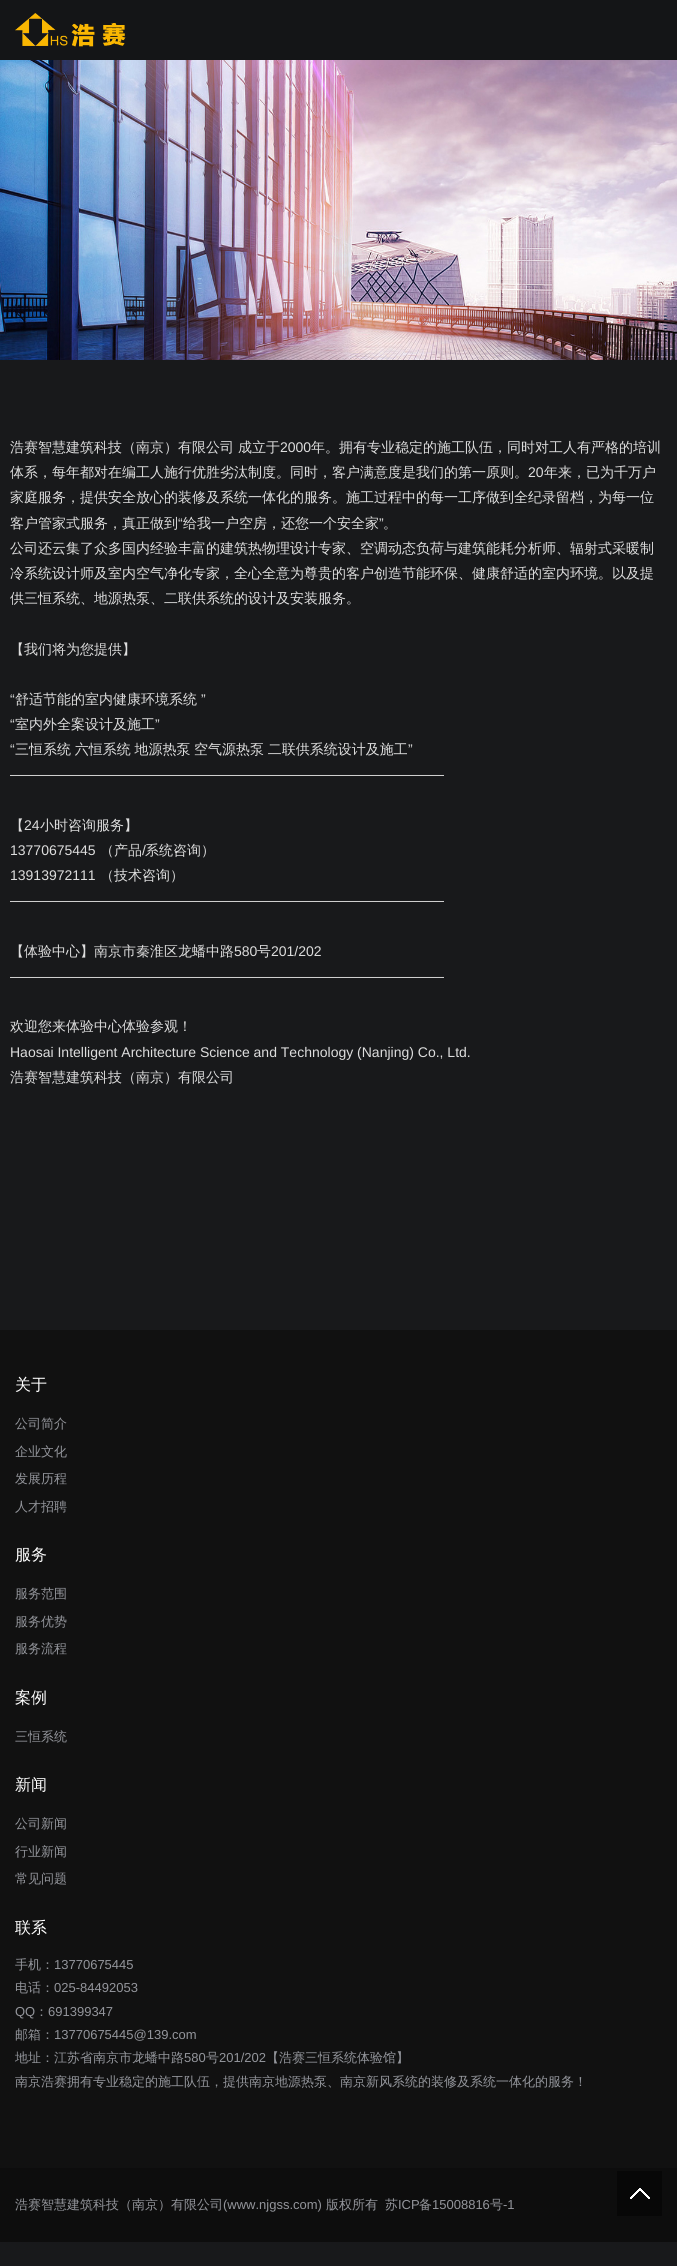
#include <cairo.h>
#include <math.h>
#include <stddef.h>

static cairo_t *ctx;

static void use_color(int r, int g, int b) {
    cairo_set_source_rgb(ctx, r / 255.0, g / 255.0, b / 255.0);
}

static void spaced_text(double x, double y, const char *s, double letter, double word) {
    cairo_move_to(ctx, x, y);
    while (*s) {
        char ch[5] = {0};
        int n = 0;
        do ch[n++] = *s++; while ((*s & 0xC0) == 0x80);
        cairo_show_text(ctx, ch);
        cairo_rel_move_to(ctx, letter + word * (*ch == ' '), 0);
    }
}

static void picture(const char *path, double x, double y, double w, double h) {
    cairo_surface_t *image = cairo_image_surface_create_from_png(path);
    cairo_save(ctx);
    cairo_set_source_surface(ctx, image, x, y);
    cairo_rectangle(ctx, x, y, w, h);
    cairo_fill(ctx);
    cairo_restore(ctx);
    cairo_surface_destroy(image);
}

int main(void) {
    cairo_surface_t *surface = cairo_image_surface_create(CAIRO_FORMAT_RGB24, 677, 2266);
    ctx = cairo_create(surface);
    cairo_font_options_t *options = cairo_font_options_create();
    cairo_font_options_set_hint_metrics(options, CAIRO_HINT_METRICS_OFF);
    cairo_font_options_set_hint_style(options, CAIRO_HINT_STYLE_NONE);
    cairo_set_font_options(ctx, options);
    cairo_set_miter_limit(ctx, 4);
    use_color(24, 25, 27);
    cairo_paint(ctx);
    use_color(20, 21, 23);
    cairo_rectangle(ctx, 0, 0, 677, 60);
    cairo_fill(ctx);
    picture("img1.png", 15, 13, 111, 34);
    picture("img2.png", 0, 60, 677, 300);
    cairo_select_font_face(ctx, "WenQuanYi Zen Hei Medium", CAIRO_FONT_SLANT_NORMAL, CAIRO_FONT_WEIGHT_NORMAL);
    cairo_set_font_size(ctx, 14);
    use_color(221, 221, 221);
    cairo_move_to(ctx, 10, 452);
    cairo_show_text(ctx, "浩赛智慧建筑科技（南京）有限公司");
    cairo_move_to(ctx, 238, 452);
    cairo_show_text(ctx, "成立于");
    cairo_select_font_face(ctx, "Liberation Sans", CAIRO_FONT_SLANT_NORMAL, CAIRO_FONT_WEIGHT_NORMAL);
    cairo_move_to(ctx, 280, 452);
    cairo_show_text(ctx, "2000");
    cairo_select_font_face(ctx, "WenQuanYi Zen Hei Medium", CAIRO_FONT_SLANT_NORMAL, CAIRO_FONT_WEIGHT_NORMAL);
    cairo_move_to(ctx, 311, 452);
    cairo_show_text(ctx, "年。拥有专业稳定的施工队伍，同时对工人有严格的培训");
    cairo_move_to(ctx, 10, 477);
    cairo_show_text(ctx, "体系，每年都对在编工人施行优胜劣汰制度。同时，客户满意度是我们的第一原则。");
    cairo_select_font_face(ctx, "Liberation Sans", CAIRO_FONT_SLANT_NORMAL, CAIRO_FONT_WEIGHT_NORMAL);
    cairo_move_to(ctx, 528, 477);
    cairo_show_text(ctx, "20");
    cairo_select_font_face(ctx, "WenQuanYi Zen Hei Medium", CAIRO_FONT_SLANT_NORMAL, CAIRO_FONT_WEIGHT_NORMAL);
    cairo_move_to(ctx, 544, 477);
    cairo_show_text(ctx, "年来，已为千万户");
    cairo_move_to(ctx, 10, 502);
    cairo_show_text(ctx, "家庭服务，提供安全放心的装修及系统一体化的服务。施工过程中的每一工序做到全纪录留档，为每一位");
    cairo_move_to(ctx, 10, 528);
    cairo_show_text(ctx, "客户管家式服务，真正做到");
    cairo_select_font_face(ctx, "Liberation Sans", CAIRO_FONT_SLANT_NORMAL, CAIRO_FONT_WEIGHT_NORMAL);
    cairo_move_to(ctx, 178, 528);
    cairo_show_text(ctx, "“");
    cairo_select_font_face(ctx, "WenQuanYi Zen Hei Medium", CAIRO_FONT_SLANT_NORMAL, CAIRO_FONT_WEIGHT_NORMAL);
    cairo_move_to(ctx, 183, 528);
    cairo_show_text(ctx, "给我一户空房，还您一个安全家");
    cairo_select_font_face(ctx, "Liberation Sans", CAIRO_FONT_SLANT_NORMAL, CAIRO_FONT_WEIGHT_NORMAL);
    cairo_move_to(ctx, 379, 528);
    cairo_show_text(ctx, "”");
    cairo_select_font_face(ctx, "WenQuanYi Zen Hei Medium", CAIRO_FONT_SLANT_NORMAL, CAIRO_FONT_WEIGHT_NORMAL);
    cairo_move_to(ctx, 383, 528);
    cairo_show_text(ctx, "。");
    cairo_move_to(ctx, 10, 553);
    cairo_show_text(ctx, "公司还云集了众多国内经验丰富的建筑热物理设计专家、空调动态负荷与建筑能耗分析师、辐射式采暖制");
    cairo_move_to(ctx, 10, 578);
    cairo_show_text(ctx, "冷系统设计师及室内空气净化专家，全心全意为尊贵的客户创造节能环保、健康舒适的室内环境。以及提");
    cairo_move_to(ctx, 10, 603);
    cairo_show_text(ctx, "供三恒系统、地源热泵、二联供系统的设计及安装服务。");
    cairo_move_to(ctx, 10, 654);
    cairo_show_text(ctx, "【我们将为您提供】");
    cairo_select_font_face(ctx, "Liberation Sans", CAIRO_FONT_SLANT_NORMAL, CAIRO_FONT_WEIGHT_NORMAL);
    cairo_move_to(ctx, 10, 704);
    cairo_show_text(ctx, "“");
    cairo_select_font_face(ctx, "WenQuanYi Zen Hei Medium", CAIRO_FONT_SLANT_NORMAL, CAIRO_FONT_WEIGHT_NORMAL);
    cairo_move_to(ctx, 15, 704);
    cairo_show_text(ctx, "舒适节能的室内健康环境系统");
    cairo_select_font_face(ctx, "Liberation Sans", CAIRO_FONT_SLANT_NORMAL, CAIRO_FONT_WEIGHT_NORMAL);
    cairo_move_to(ctx, 201, 704);
    cairo_show_text(ctx, "”");
    cairo_move_to(ctx, 10, 729);
    cairo_show_text(ctx, "“");
    cairo_select_font_face(ctx, "WenQuanYi Zen Hei Medium", CAIRO_FONT_SLANT_NORMAL, CAIRO_FONT_WEIGHT_NORMAL);
    cairo_move_to(ctx, 15, 729);
    cairo_show_text(ctx, "室内外全案设计及施工");
    cairo_select_font_face(ctx, "Liberation Sans", CAIRO_FONT_SLANT_NORMAL, CAIRO_FONT_WEIGHT_NORMAL);
    cairo_move_to(ctx, 155, 729);
    cairo_show_text(ctx, "”");
    cairo_move_to(ctx, 10, 754);
    cairo_show_text(ctx, "“");
    cairo_select_font_face(ctx, "WenQuanYi Zen Hei Medium", CAIRO_FONT_SLANT_NORMAL, CAIRO_FONT_WEIGHT_NORMAL);
    spaced_text(15, 754, "三恒系统 六恒系统 地源热泵 空气源热泵 二联供系统设计及施工", 0, -0.5);
    cairo_select_font_face(ctx, "Liberation Sans", CAIRO_FONT_SLANT_NORMAL, CAIRO_FONT_WEIGHT_NORMAL);
    cairo_move_to(ctx, 408, 754);
    cairo_show_text(ctx, "”");
    cairo_move_to(ctx, 10, 779);
    cairo_show_text(ctx, "———————————————————————————————");
    cairo_select_font_face(ctx, "WenQuanYi Zen Hei Medium", CAIRO_FONT_SLANT_NORMAL, CAIRO_FONT_WEIGHT_NORMAL);
    cairo_move_to(ctx, 10, 830);
    cairo_show_text(ctx, "【");
    cairo_select_font_face(ctx, "Liberation Sans", CAIRO_FONT_SLANT_NORMAL, CAIRO_FONT_WEIGHT_NORMAL);
    cairo_move_to(ctx, 24, 830);
    cairo_show_text(ctx, "24");
    cairo_select_font_face(ctx, "WenQuanYi Zen Hei Medium", CAIRO_FONT_SLANT_NORMAL, CAIRO_FONT_WEIGHT_NORMAL);
    cairo_move_to(ctx, 40, 830);
    cairo_show_text(ctx, "小时咨询服务】");
    cairo_select_font_face(ctx, "Liberation Sans", CAIRO_FONT_SLANT_NORMAL, CAIRO_FONT_WEIGHT_NORMAL);
    cairo_move_to(ctx, 10, 855);
    cairo_show_text(ctx, "13770675445");
    cairo_select_font_face(ctx, "WenQuanYi Zen Hei Medium", CAIRO_FONT_SLANT_NORMAL, CAIRO_FONT_WEIGHT_NORMAL);
    cairo_move_to(ctx, 100, 855);
    cairo_show_text(ctx, "（产品");
    cairo_select_font_face(ctx, "Liberation Sans", CAIRO_FONT_SLANT_NORMAL, CAIRO_FONT_WEIGHT_NORMAL);
    cairo_move_to(ctx, 142, 855);
    cairo_show_text(ctx, "/");
    cairo_select_font_face(ctx, "WenQuanYi Zen Hei Medium", CAIRO_FONT_SLANT_NORMAL, CAIRO_FONT_WEIGHT_NORMAL);
    cairo_move_to(ctx, 145, 855);
    cairo_show_text(ctx, "系统咨询）");
    cairo_select_font_face(ctx, "Liberation Sans", CAIRO_FONT_SLANT_NORMAL, CAIRO_FONT_WEIGHT_NORMAL);
    cairo_move_to(ctx, 10, 880);
    cairo_show_text(ctx, "13913972111");
    cairo_select_font_face(ctx, "WenQuanYi Zen Hei Medium", CAIRO_FONT_SLANT_NORMAL, CAIRO_FONT_WEIGHT_NORMAL);
    cairo_move_to(ctx, 100, 880);
    cairo_show_text(ctx, "（技术咨询）");
    cairo_select_font_face(ctx, "Liberation Sans", CAIRO_FONT_SLANT_NORMAL, CAIRO_FONT_WEIGHT_NORMAL);
    cairo_move_to(ctx, 10, 905);
    cairo_show_text(ctx, "———————————————————————————————");
    cairo_select_font_face(ctx, "WenQuanYi Zen Hei Medium", CAIRO_FONT_SLANT_NORMAL, CAIRO_FONT_WEIGHT_NORMAL);
    cairo_move_to(ctx, 10, 956);
    cairo_show_text(ctx, "【体验中心】南京市秦淮区龙蟠中路");
    cairo_select_font_face(ctx, "Liberation Sans", CAIRO_FONT_SLANT_NORMAL, CAIRO_FONT_WEIGHT_NORMAL);
    cairo_move_to(ctx, 234, 956);
    cairo_show_text(ctx, "580");
    cairo_select_font_face(ctx, "WenQuanYi Zen Hei Medium", CAIRO_FONT_SLANT_NORMAL, CAIRO_FONT_WEIGHT_NORMAL);
    cairo_move_to(ctx, 257, 956);
    cairo_show_text(ctx, "号");
    cairo_select_font_face(ctx, "Liberation Sans", CAIRO_FONT_SLANT_NORMAL, CAIRO_FONT_WEIGHT_NORMAL);
    cairo_move_to(ctx, 271, 956);
    cairo_show_text(ctx, "201/202");
    cairo_move_to(ctx, 10, 981);
    cairo_show_text(ctx, "———————————————————————————————");
    cairo_select_font_face(ctx, "WenQuanYi Zen Hei Medium", CAIRO_FONT_SLANT_NORMAL, CAIRO_FONT_WEIGHT_NORMAL);
    cairo_move_to(ctx, 10, 1031);
    cairo_show_text(ctx, "欢迎您来体验中心体验参观！");
    cairo_select_font_face(ctx, "Liberation Sans", CAIRO_FONT_SLANT_NORMAL, CAIRO_FONT_WEIGHT_NORMAL);
    cairo_move_to(ctx, 10, 1057);
    cairo_show_text(ctx, "Haosai Intelligent Architecture Science and Technology (Nanjing) Co., Ltd.");
    cairo_select_font_face(ctx, "WenQuanYi Zen Hei Medium", CAIRO_FONT_SLANT_NORMAL, CAIRO_FONT_WEIGHT_NORMAL);
    cairo_move_to(ctx, 10, 1082);
    cairo_show_text(ctx, "浩赛智慧建筑科技（南京）有限公司");
    use_color(17, 17, 17);
    cairo_rectangle(ctx, 0, 1330, 677, 838);
    cairo_fill(ctx);
    cairo_set_font_size(ctx, 16);
    use_color(255, 255, 255);
    cairo_move_to(ctx, 15, 1390);
    cairo_show_text(ctx, "关于");
    cairo_set_font_size(ctx, 13);
    use_color(147, 149, 155);
    cairo_move_to(ctx, 15, 1428);
    cairo_show_text(ctx, "公司简介");
    cairo_move_to(ctx, 15, 1456);
    cairo_show_text(ctx, "企业文化");
    cairo_move_to(ctx, 15, 1483);
    cairo_show_text(ctx, "发展历程");
    cairo_move_to(ctx, 15, 1511);
    cairo_show_text(ctx, "人才招聘");
    cairo_set_font_size(ctx, 16);
    use_color(255, 255, 255);
    cairo_move_to(ctx, 15, 1560);
    cairo_show_text(ctx, "服务");
    cairo_set_font_size(ctx, 13);
    use_color(147, 149, 155);
    cairo_move_to(ctx, 15, 1598);
    cairo_show_text(ctx, "服务范围");
    cairo_move_to(ctx, 15, 1626);
    cairo_show_text(ctx, "服务优势");
    cairo_move_to(ctx, 15, 1653);
    cairo_show_text(ctx, "服务流程");
    cairo_set_font_size(ctx, 16);
    use_color(255, 255, 255);
    cairo_move_to(ctx, 15, 1703);
    cairo_show_text(ctx, "案例");
    cairo_set_font_size(ctx, 13);
    use_color(147, 149, 155);
    cairo_move_to(ctx, 15, 1741);
    cairo_show_text(ctx, "三恒系统");
    cairo_set_font_size(ctx, 16);
    use_color(255, 255, 255);
    cairo_move_to(ctx, 15, 1790);
    cairo_show_text(ctx, "新闻");
    cairo_set_font_size(ctx, 13);
    use_color(147, 149, 155);
    cairo_move_to(ctx, 15, 1828);
    cairo_show_text(ctx, "公司新闻");
    cairo_move_to(ctx, 15, 1856);
    cairo_show_text(ctx, "行业新闻");
    cairo_move_to(ctx, 15, 1883);
    cairo_show_text(ctx, "常见问题");
    cairo_set_font_size(ctx, 16);
    use_color(255, 255, 255);
    cairo_move_to(ctx, 15, 1933);
    cairo_show_text(ctx, "联系");
    cairo_set_font_size(ctx, 13);
    use_color(147, 149, 155);
    cairo_move_to(ctx, 15, 1969);
    cairo_show_text(ctx, "手机：");
    cairo_select_font_face(ctx, "Liberation Sans", CAIRO_FONT_SLANT_NORMAL, CAIRO_FONT_WEIGHT_NORMAL);
    cairo_move_to(ctx, 54, 1969);
    cairo_show_text(ctx, "13770675445");
    cairo_select_font_face(ctx, "WenQuanYi Zen Hei Medium", CAIRO_FONT_SLANT_NORMAL, CAIRO_FONT_WEIGHT_NORMAL);
    cairo_move_to(ctx, 15, 1992);
    cairo_show_text(ctx, "电话：");
    cairo_select_font_face(ctx, "Liberation Sans", CAIRO_FONT_SLANT_NORMAL, CAIRO_FONT_WEIGHT_NORMAL);
    cairo_move_to(ctx, 54, 1992);
    cairo_show_text(ctx, "025-84492053");
    cairo_move_to(ctx, 15, 2016);
    cairo_show_text(ctx, "QQ");
    cairo_select_font_face(ctx, "WenQuanYi Zen Hei Medium", CAIRO_FONT_SLANT_NORMAL, CAIRO_FONT_WEIGHT_NORMAL);
    cairo_move_to(ctx, 35, 2016);
    cairo_show_text(ctx, "：");
    cairo_select_font_face(ctx, "Liberation Sans", CAIRO_FONT_SLANT_NORMAL, CAIRO_FONT_WEIGHT_NORMAL);
    cairo_move_to(ctx, 48, 2016);
    cairo_show_text(ctx, "691399347");
    cairo_select_font_face(ctx, "WenQuanYi Zen Hei Medium", CAIRO_FONT_SLANT_NORMAL, CAIRO_FONT_WEIGHT_NORMAL);
    cairo_move_to(ctx, 15, 2039);
    cairo_show_text(ctx, "邮箱：");
    cairo_select_font_face(ctx, "Liberation Sans", CAIRO_FONT_SLANT_NORMAL, CAIRO_FONT_WEIGHT_NORMAL);
    cairo_move_to(ctx, 54, 2039);
    cairo_show_text(ctx, "13770675445@139.com");
    cairo_select_font_face(ctx, "WenQuanYi Zen Hei Medium", CAIRO_FONT_SLANT_NORMAL, CAIRO_FONT_WEIGHT_NORMAL);
    cairo_move_to(ctx, 15, 2062);
    cairo_show_text(ctx, "地址：江苏省南京市龙蟠中路");
    cairo_select_font_face(ctx, "Liberation Sans", CAIRO_FONT_SLANT_NORMAL, CAIRO_FONT_WEIGHT_NORMAL);
    cairo_move_to(ctx, 184, 2062);
    cairo_show_text(ctx, "580");
    cairo_select_font_face(ctx, "WenQuanYi Zen Hei Medium", CAIRO_FONT_SLANT_NORMAL, CAIRO_FONT_WEIGHT_NORMAL);
    cairo_move_to(ctx, 206, 2062);
    cairo_show_text(ctx, "号");
    cairo_select_font_face(ctx, "Liberation Sans", CAIRO_FONT_SLANT_NORMAL, CAIRO_FONT_WEIGHT_NORMAL);
    cairo_move_to(ctx, 219, 2062);
    cairo_show_text(ctx, "201/202");
    cairo_select_font_face(ctx, "WenQuanYi Zen Hei Medium", CAIRO_FONT_SLANT_NORMAL, CAIRO_FONT_WEIGHT_NORMAL);
    cairo_move_to(ctx, 266, 2062);
    cairo_show_text(ctx, "【浩赛三恒系统体验馆】");
    cairo_move_to(ctx, 15, 2086);
    cairo_show_text(ctx, "南京浩赛拥有专业稳定的施工队伍，提供南京地源热泵、南京新风系统的装修及系统一体化的服务！");
    use_color(13, 13, 13);
    cairo_rectangle(ctx, 0, 2168, 677, 74);
    cairo_fill(ctx);
    use_color(147, 149, 155);
    cairo_move_to(ctx, 15, 2209);
    cairo_show_text(ctx, "浩赛智慧建筑科技（南京）有限公司");
    cairo_select_font_face(ctx, "Liberation Sans", CAIRO_FONT_SLANT_NORMAL, CAIRO_FONT_WEIGHT_NORMAL);
    cairo_move_to(ctx, 223, 2209);
    cairo_show_text(ctx, "(www.njgss.com)");
    cairo_select_font_face(ctx, "WenQuanYi Zen Hei Medium", CAIRO_FONT_SLANT_NORMAL, CAIRO_FONT_WEIGHT_NORMAL);
    cairo_move_to(ctx, 326, 2209);
    cairo_show_text(ctx, "版权所有");
    cairo_move_to(ctx, 385, 2209);
    cairo_show_text(ctx, "苏");
    cairo_select_font_face(ctx, "Liberation Sans", CAIRO_FONT_SLANT_NORMAL, CAIRO_FONT_WEIGHT_NORMAL);
    cairo_move_to(ctx, 398, 2209);
    cairo_show_text(ctx, "ICP");
    cairo_select_font_face(ctx, "WenQuanYi Zen Hei Medium", CAIRO_FONT_SLANT_NORMAL, CAIRO_FONT_WEIGHT_NORMAL);
    cairo_move_to(ctx, 419, 2209);
    cairo_show_text(ctx, "备");
    cairo_select_font_face(ctx, "Liberation Sans", CAIRO_FONT_SLANT_NORMAL, CAIRO_FONT_WEIGHT_NORMAL);
    cairo_move_to(ctx, 432, 2209);
    cairo_show_text(ctx, "15008816");
    cairo_select_font_face(ctx, "WenQuanYi Zen Hei Medium", CAIRO_FONT_SLANT_NORMAL, CAIRO_FONT_WEIGHT_NORMAL);
    cairo_move_to(ctx, 490, 2209);
    cairo_show_text(ctx, "号");
    cairo_select_font_face(ctx, "Liberation Sans", CAIRO_FONT_SLANT_NORMAL, CAIRO_FONT_WEIGHT_NORMAL);
    cairo_move_to(ctx, 503, 2209);
    cairo_show_text(ctx, "-1");
    use_color(7, 7, 7);
    cairo_rectangle(ctx, 617, 2171, 45, 45);
    cairo_fill(ctx);
    picture("img3.png", 630, 2188, 20, 11);
    cairo_surface_write_to_png(surface, "result.png");
    cairo_font_options_destroy(options);
    cairo_destroy(ctx);
    cairo_surface_destroy(surface);
    return 0;
}
